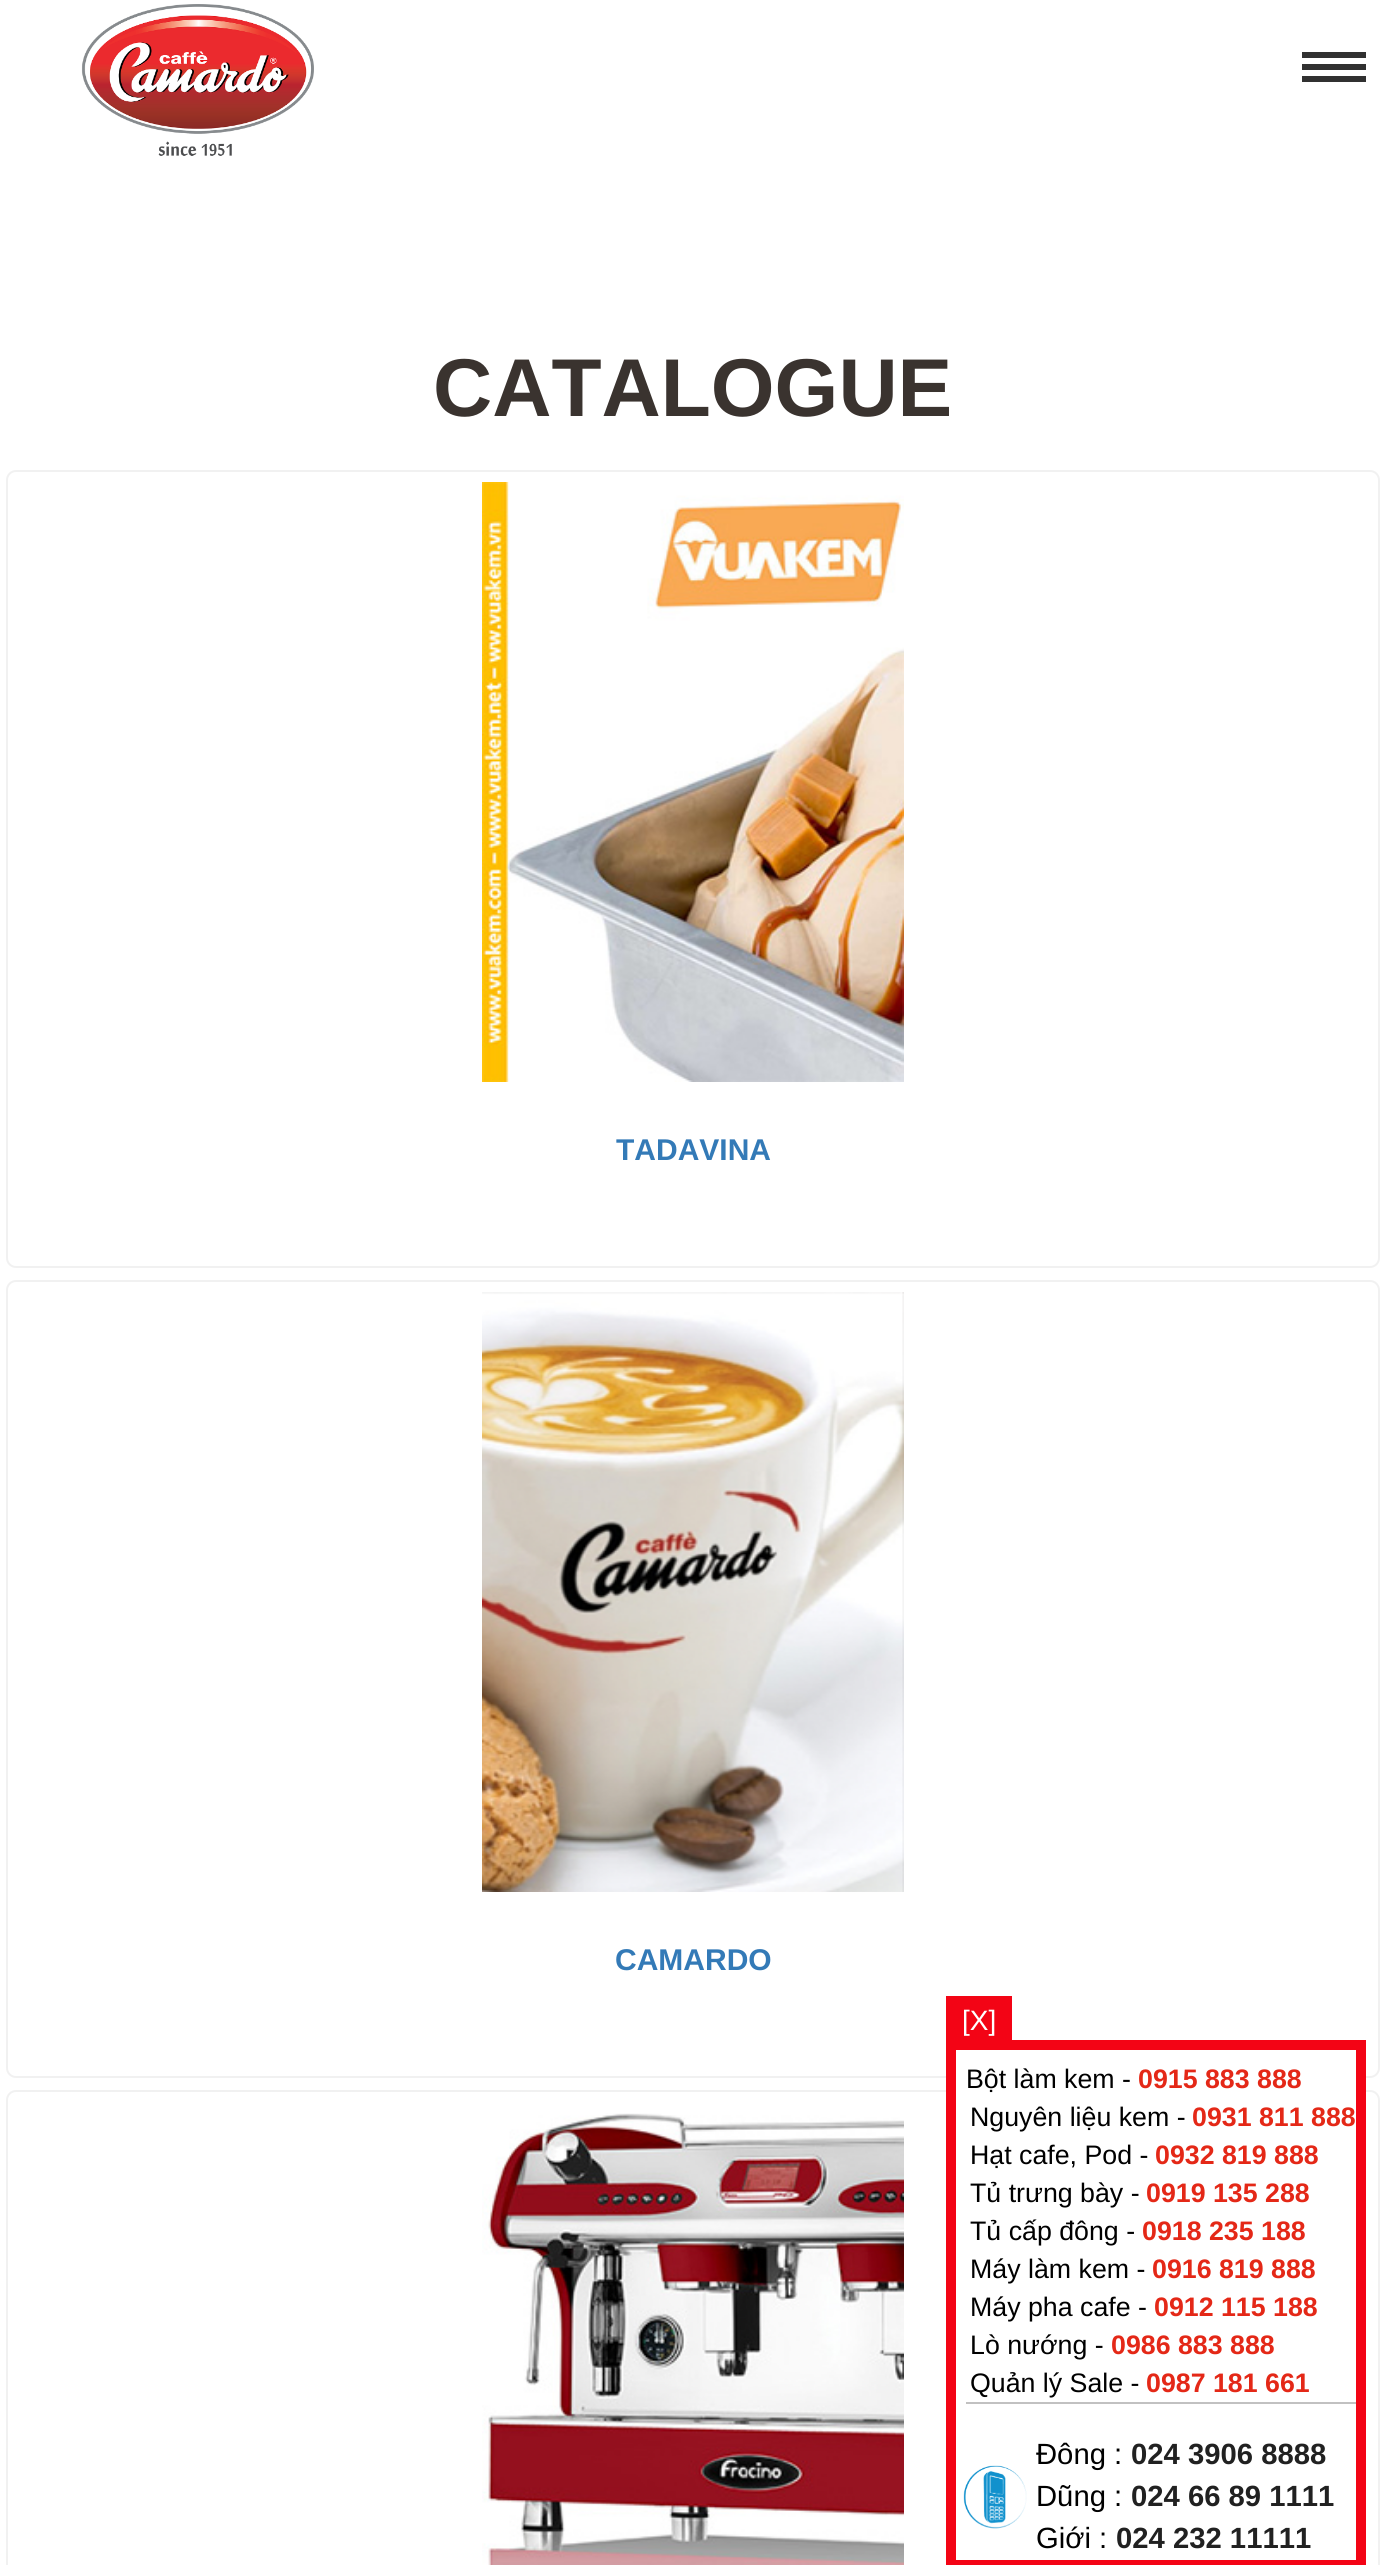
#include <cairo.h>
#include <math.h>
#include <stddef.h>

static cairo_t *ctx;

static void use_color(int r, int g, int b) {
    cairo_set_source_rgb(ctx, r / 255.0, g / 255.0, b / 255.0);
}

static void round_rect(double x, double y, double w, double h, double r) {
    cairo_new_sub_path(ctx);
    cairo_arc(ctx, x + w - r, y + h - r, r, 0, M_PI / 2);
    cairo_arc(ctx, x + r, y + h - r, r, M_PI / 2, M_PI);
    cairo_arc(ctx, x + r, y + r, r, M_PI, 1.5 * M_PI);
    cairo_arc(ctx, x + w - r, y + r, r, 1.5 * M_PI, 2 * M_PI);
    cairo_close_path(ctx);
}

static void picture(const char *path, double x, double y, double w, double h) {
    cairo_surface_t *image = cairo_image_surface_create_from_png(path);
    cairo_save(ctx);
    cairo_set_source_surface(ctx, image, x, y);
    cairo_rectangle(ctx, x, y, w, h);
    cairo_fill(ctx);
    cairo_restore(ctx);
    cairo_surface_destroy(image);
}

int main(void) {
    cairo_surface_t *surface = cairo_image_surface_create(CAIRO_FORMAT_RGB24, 1385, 2565);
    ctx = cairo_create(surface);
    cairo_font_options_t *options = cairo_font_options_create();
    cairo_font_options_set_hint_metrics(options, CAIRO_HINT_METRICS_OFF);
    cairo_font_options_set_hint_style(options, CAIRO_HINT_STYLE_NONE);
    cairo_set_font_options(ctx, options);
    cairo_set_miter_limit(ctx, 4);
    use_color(255, 255, 255);
    cairo_paint(ctx);
    picture("img1.png", 81, 4, 233, 152);
    use_color(49, 49, 49);
    cairo_rectangle(ctx, 1302, 52, 64, 6);
    cairo_fill(ctx);
    cairo_rectangle(ctx, 1302, 64, 64, 6);
    cairo_fill(ctx);
    cairo_rectangle(ctx, 1302, 76, 64, 6);
    cairo_fill(ctx);
    cairo_select_font_face(ctx, "Liberation Sans", CAIRO_FONT_SLANT_NORMAL, CAIRO_FONT_WEIGHT_BOLD);
    cairo_set_font_size(ctx, 82);
    use_color(58, 51, 47);
    cairo_move_to(ctx, 433, 416);
    cairo_show_text(ctx, "CATALOGUE");
    round_rect(7, 471, 1372, 796, 9);
    use_color(241, 241, 241);
    cairo_stroke(ctx);
    picture("img2.png", 482, 482, 422, 600);
    cairo_set_font_size(ctx, 30);
    use_color(51, 122, 183);
    cairo_move_to(ctx, 616, 1160);
    cairo_show_text(ctx, "TADAVINA");
    round_rect(7, 1281, 1372, 796, 9);
    use_color(241, 241, 241);
    cairo_stroke(ctx);
    picture("img3.png", 482, 1292, 422, 600);
    use_color(51, 122, 183);
    cairo_move_to(ctx, 615, 1970);
    cairo_show_text(ctx, "CAMARDO");
    round_rect(7, 2091, 1372, 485, 9);
    use_color(241, 241, 241);
    cairo_stroke(ctx);
    picture("img4.png", 482, 2113, 422, 452);
    use_color(243, 4, 21);
    cairo_rectangle(ctx, 946, 1996, 66, 44);
    cairo_fill(ctx);
    cairo_select_font_face(ctx, "Liberation Sans", CAIRO_FONT_SLANT_NORMAL, CAIRO_FONT_WEIGHT_NORMAL);
    cairo_set_font_size(ctx, 28);
    use_color(255, 255, 255);
    cairo_move_to(ctx, 962, 2030);
    cairo_show_text(ctx, "[X]");
    cairo_rectangle(ctx, 956, 2076, 400, 16);
    cairo_fill(ctx);
    cairo_rectangle(ctx, 951, 2045, 410, 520);
    use_color(243, 4, 21);
    cairo_set_line_width(ctx, 10);
    cairo_stroke(ctx);
    cairo_set_font_size(ctx, 26.75);
    use_color(0, 0, 0);
    cairo_move_to(ctx, 966, 2088);
    cairo_show_text(ctx, "Bột làm kem -");
    cairo_select_font_face(ctx, "Liberation Sans", CAIRO_FONT_SLANT_NORMAL, CAIRO_FONT_WEIGHT_BOLD);
    use_color(228, 40, 23);
    cairo_move_to(ctx, 1138, 2088);
    cairo_show_text(ctx, "0915 883 888");
    cairo_select_font_face(ctx, "Liberation Sans", CAIRO_FONT_SLANT_NORMAL, CAIRO_FONT_WEIGHT_NORMAL);
    use_color(0, 0, 0);
    cairo_move_to(ctx, 970, 2126);
    cairo_show_text(ctx, "Nguyên liệu kem -");
    cairo_select_font_face(ctx, "Liberation Sans", CAIRO_FONT_SLANT_NORMAL, CAIRO_FONT_WEIGHT_BOLD);
    use_color(228, 40, 23);
    cairo_move_to(ctx, 1192, 2126);
    cairo_show_text(ctx, "0931 811 888");
    cairo_select_font_face(ctx, "Liberation Sans", CAIRO_FONT_SLANT_NORMAL, CAIRO_FONT_WEIGHT_NORMAL);
    use_color(0, 0, 0);
    cairo_move_to(ctx, 970, 2164);
    cairo_show_text(ctx, "Hạt cafe, Pod -");
    cairo_select_font_face(ctx, "Liberation Sans", CAIRO_FONT_SLANT_NORMAL, CAIRO_FONT_WEIGHT_BOLD);
    use_color(228, 40, 23);
    cairo_move_to(ctx, 1155, 2164);
    cairo_show_text(ctx, "0932 819 888");
    cairo_select_font_face(ctx, "Liberation Sans", CAIRO_FONT_SLANT_NORMAL, CAIRO_FONT_WEIGHT_NORMAL);
    use_color(0, 0, 0);
    cairo_move_to(ctx, 970, 2202);
    cairo_show_text(ctx, "Tủ trưng bày -");
    cairo_select_font_face(ctx, "Liberation Sans", CAIRO_FONT_SLANT_NORMAL, CAIRO_FONT_WEIGHT_BOLD);
    use_color(228, 40, 23);
    cairo_move_to(ctx, 1146, 2202);
    cairo_show_text(ctx, "0919 135 288");
    cairo_select_font_face(ctx, "Liberation Sans", CAIRO_FONT_SLANT_NORMAL, CAIRO_FONT_WEIGHT_NORMAL);
    use_color(0, 0, 0);
    cairo_move_to(ctx, 970, 2240);
    cairo_show_text(ctx, "Tủ cấp đông -");
    cairo_select_font_face(ctx, "Liberation Sans", CAIRO_FONT_SLANT_NORMAL, CAIRO_FONT_WEIGHT_BOLD);
    use_color(228, 40, 23);
    cairo_move_to(ctx, 1142, 2240);
    cairo_show_text(ctx, "0918 235 188");
    cairo_select_font_face(ctx, "Liberation Sans", CAIRO_FONT_SLANT_NORMAL, CAIRO_FONT_WEIGHT_NORMAL);
    use_color(0, 0, 0);
    cairo_move_to(ctx, 970, 2278);
    cairo_show_text(ctx, "Máy làm kem -");
    cairo_select_font_face(ctx, "Liberation Sans", CAIRO_FONT_SLANT_NORMAL, CAIRO_FONT_WEIGHT_BOLD);
    use_color(228, 40, 23);
    cairo_move_to(ctx, 1152, 2278);
    cairo_show_text(ctx, "0916 819 888");
    cairo_select_font_face(ctx, "Liberation Sans", CAIRO_FONT_SLANT_NORMAL, CAIRO_FONT_WEIGHT_NORMAL);
    use_color(0, 0, 0);
    cairo_move_to(ctx, 970, 2316);
    cairo_show_text(ctx, "Máy pha cafe -");
    cairo_select_font_face(ctx, "Liberation Sans", CAIRO_FONT_SLANT_NORMAL, CAIRO_FONT_WEIGHT_BOLD);
    use_color(228, 40, 23);
    cairo_move_to(ctx, 1154, 2316);
    cairo_show_text(ctx, "0912 115 188");
    cairo_select_font_face(ctx, "Liberation Sans", CAIRO_FONT_SLANT_NORMAL, CAIRO_FONT_WEIGHT_NORMAL);
    use_color(0, 0, 0);
    cairo_move_to(ctx, 970, 2354);
    cairo_show_text(ctx, "Lò nướng -");
    cairo_select_font_face(ctx, "Liberation Sans", CAIRO_FONT_SLANT_NORMAL, CAIRO_FONT_WEIGHT_BOLD);
    use_color(228, 40, 23);
    cairo_move_to(ctx, 1111, 2354);
    cairo_show_text(ctx, "0986 883 888");
    cairo_select_font_face(ctx, "Liberation Sans", CAIRO_FONT_SLANT_NORMAL, CAIRO_FONT_WEIGHT_NORMAL);
    use_color(0, 0, 0);
    cairo_move_to(ctx, 970, 2392);
    cairo_show_text(ctx, "Quản lý Sale -");
    cairo_select_font_face(ctx, "Liberation Sans", CAIRO_FONT_SLANT_NORMAL, CAIRO_FONT_WEIGHT_BOLD);
    use_color(228, 40, 23);
    cairo_move_to(ctx, 1146, 2392);
    cairo_show_text(ctx, "0987 181 661");
    use_color(193, 193, 193);
    cairo_rectangle(ctx, 966, 2402, 390, 2);
    cairo_fill(ctx);
    cairo_select_font_face(ctx, "Liberation Sans", CAIRO_FONT_SLANT_NORMAL, CAIRO_FONT_WEIGHT_NORMAL);
    cairo_set_font_size(ctx, 29.25);
    use_color(0, 0, 0);
    cairo_move_to(ctx, 1036, 2464);
    cairo_show_text(ctx, "Đông :");
    cairo_select_font_face(ctx, "Liberation Sans", CAIRO_FONT_SLANT_NORMAL, CAIRO_FONT_WEIGHT_BOLD);
    use_color(33, 33, 33);
    cairo_move_to(ctx, 1131, 2464);
    cairo_show_text(ctx, "024 3906 8888");
    picture("img5.png", 963, 2465, 64, 64);
    cairo_select_font_face(ctx, "Liberation Sans", CAIRO_FONT_SLANT_NORMAL, CAIRO_FONT_WEIGHT_NORMAL);
    use_color(0, 0, 0);
    cairo_move_to(ctx, 1036, 2506);
    cairo_show_text(ctx, "Dũng :");
    cairo_select_font_face(ctx, "Liberation Sans", CAIRO_FONT_SLANT_NORMAL, CAIRO_FONT_WEIGHT_BOLD);
    use_color(33, 33, 33);
    cairo_move_to(ctx, 1131, 2506);
    cairo_show_text(ctx, "024 66 89 1111");
    cairo_select_font_face(ctx, "Liberation Sans", CAIRO_FONT_SLANT_NORMAL, CAIRO_FONT_WEIGHT_NORMAL);
    use_color(0, 0, 0);
    cairo_move_to(ctx, 1036, 2548);
    cairo_show_text(ctx, "Giới :");
    cairo_select_font_face(ctx, "Liberation Sans", CAIRO_FONT_SLANT_NORMAL, CAIRO_FONT_WEIGHT_BOLD);
    use_color(33, 33, 33);
    cairo_move_to(ctx, 1116, 2548);
    cairo_show_text(ctx, "024 232 11111");
    cairo_surface_write_to_png(surface, "result.png");
    cairo_font_options_destroy(options);
    cairo_destroy(ctx);
    cairo_surface_destroy(surface);
    return 0;
}
